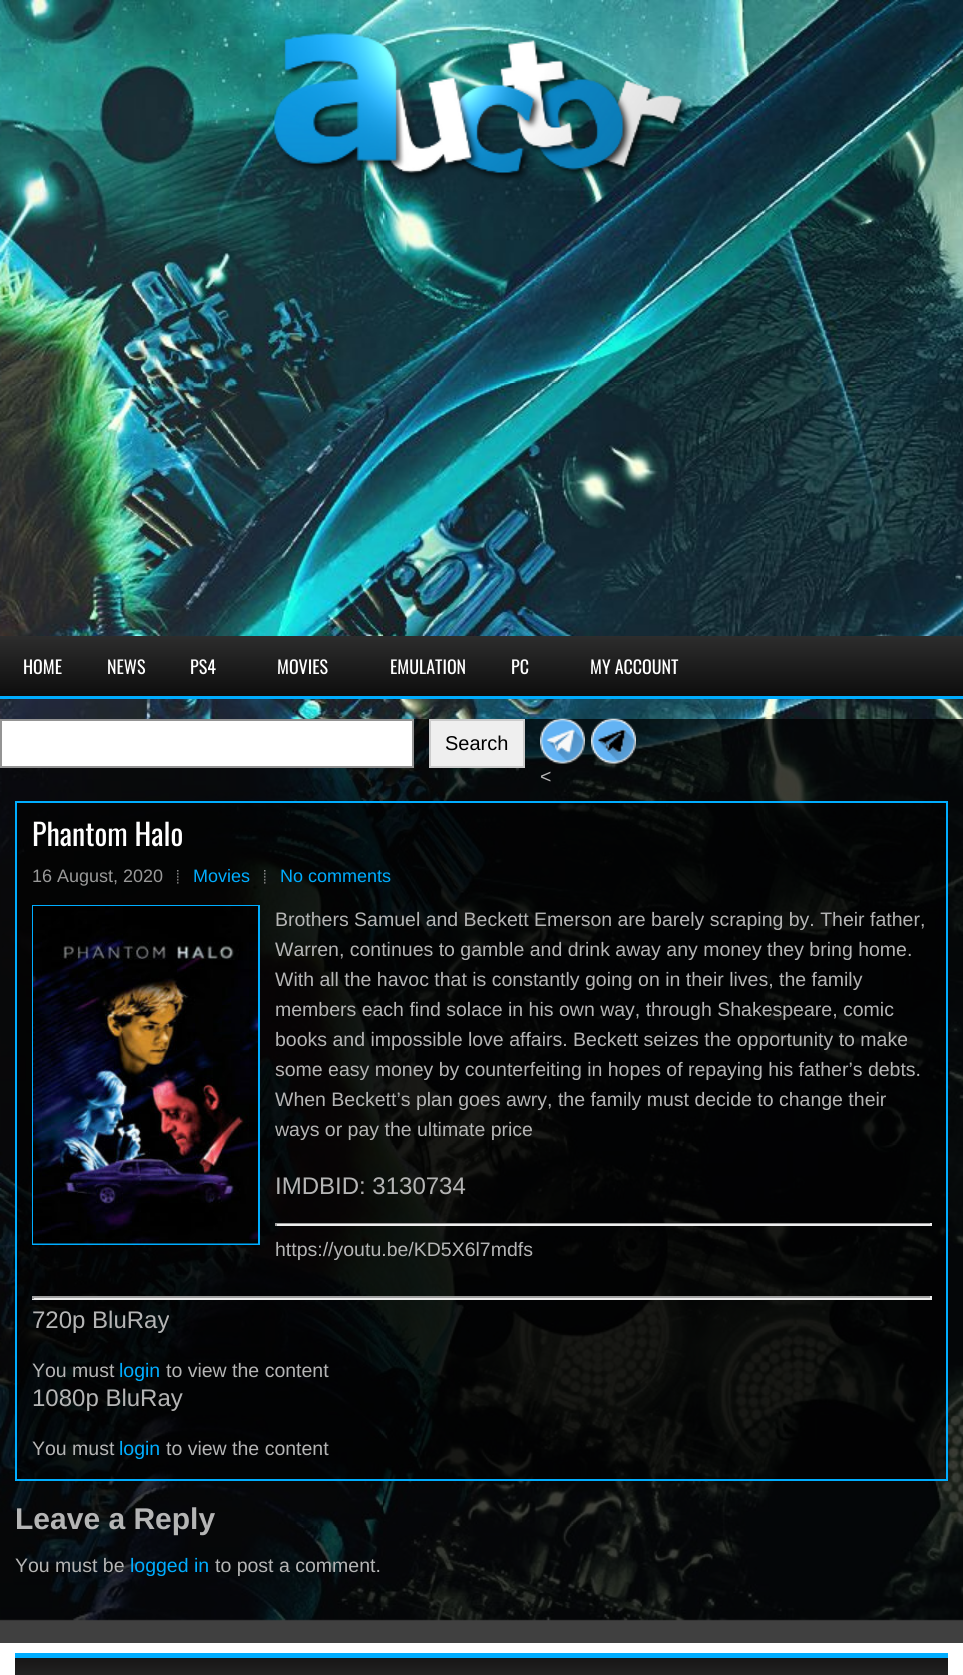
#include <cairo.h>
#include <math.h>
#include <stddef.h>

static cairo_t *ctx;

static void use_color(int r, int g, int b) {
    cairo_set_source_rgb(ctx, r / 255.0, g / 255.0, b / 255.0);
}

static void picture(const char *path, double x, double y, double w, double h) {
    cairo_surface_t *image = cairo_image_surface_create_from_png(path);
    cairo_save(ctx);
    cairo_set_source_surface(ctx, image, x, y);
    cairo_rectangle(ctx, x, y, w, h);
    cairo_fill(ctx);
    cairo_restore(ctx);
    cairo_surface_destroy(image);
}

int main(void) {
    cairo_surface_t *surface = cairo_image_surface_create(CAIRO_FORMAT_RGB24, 963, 1675);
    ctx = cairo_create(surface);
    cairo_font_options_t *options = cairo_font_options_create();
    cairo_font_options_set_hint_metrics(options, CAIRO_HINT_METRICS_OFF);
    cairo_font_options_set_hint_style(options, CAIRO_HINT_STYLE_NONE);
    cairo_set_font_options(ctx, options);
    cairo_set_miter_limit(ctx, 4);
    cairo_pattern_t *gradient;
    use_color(255, 255, 255);
    cairo_paint(ctx);
    picture("img1.png", 0, 0, 963, 1621);
    picture("img2.png", 272, 32, 418, 148);
    use_color(0, 173, 255);
    cairo_rectangle(ctx, 0, 696, 963, 3);
    cairo_fill(ctx);
    gradient = cairo_pattern_create_linear(482, 696, 482, 636);
    cairo_pattern_add_color_stop_rgba(gradient, 0, 0.051, 0.051, 0.051, 1);
    cairo_pattern_add_color_stop_rgba(gradient, 1, 0.176, 0.176, 0.176, 1);
    cairo_set_source(ctx, gradient);
    cairo_pattern_destroy(gradient);
    cairo_rectangle(ctx, 0, 636, 963, 60);
    cairo_fill(ctx);
    cairo_select_font_face(ctx, "Oswald", CAIRO_FONT_SLANT_NORMAL, CAIRO_FONT_WEIGHT_NORMAL);
    cairo_set_font_size(ctx, 18);
    use_color(255, 255, 255);
    cairo_move_to(ctx, 23, 674);
    cairo_show_text(ctx, "HOME");
    cairo_move_to(ctx, 107, 674);
    cairo_show_text(ctx, "NEWS");
    cairo_move_to(ctx, 190, 674);
    cairo_show_text(ctx, "PS4");
    cairo_move_to(ctx, 277, 674);
    cairo_show_text(ctx, "MOVIES");
    cairo_move_to(ctx, 390, 674);
    cairo_show_text(ctx, "EMULATION");
    cairo_move_to(ctx, 511, 674);
    cairo_show_text(ctx, "PC");
    cairo_move_to(ctx, 590, 674);
    cairo_show_text(ctx, "MY ACCOUNT");
    cairo_set_source_rgba(ctx, 0, 0, 0, 0.75);
    cairo_rectangle(ctx, 0, 719, 963, 924);
    cairo_fill(ctx);
    use_color(255, 255, 255);
    cairo_rectangle(ctx, 1, 720, 412, 47);
    cairo_fill_preserve(ctx);
    use_color(148, 148, 148);
    cairo_stroke(ctx);
    use_color(239, 239, 239);
    cairo_rectangle(ctx, 430, 720, 94, 47);
    cairo_fill_preserve(ctx);
    use_color(204, 204, 204);
    cairo_stroke(ctx);
    cairo_select_font_face(ctx, "Liberation Sans", CAIRO_FONT_SLANT_NORMAL, CAIRO_FONT_WEIGHT_NORMAL);
    cairo_set_font_size(ctx, 20);
    use_color(0, 0, 0);
    cairo_move_to(ctx, 445, 750);
    cairo_show_text(ctx, "Search");
    picture("img3.png", 540, 718, 45, 46);
    picture("img4.png", 591, 718, 45, 46);
    cairo_set_font_size(ctx, 19.5);
    use_color(181, 181, 181);
    cairo_move_to(ctx, 540, 783);
    cairo_show_text(ctx, "<");
    cairo_set_source_rgba(ctx, 0, 0, 0, 0.6);
    cairo_rectangle(ctx, 16, 802, 931, 678);
    cairo_fill_preserve(ctx);
    use_color(0, 173, 255);
    cairo_stroke(ctx);
    cairo_select_font_face(ctx, "Oswald", CAIRO_FONT_SLANT_NORMAL, CAIRO_FONT_WEIGHT_NORMAL);
    cairo_set_font_size(ctx, 30);
    use_color(255, 255, 255);
    cairo_move_to(ctx, 32, 846);
    cairo_show_text(ctx, "Phantom Halo");
    cairo_select_font_face(ctx, "Liberation Sans", CAIRO_FONT_SLANT_NORMAL, CAIRO_FONT_WEIGHT_NORMAL);
    cairo_set_font_size(ctx, 18);
    use_color(153, 153, 153);
    cairo_move_to(ctx, 32, 882);
    cairo_show_text(ctx, "16 August, 2020");
    picture("img5.png", 177, 870, 2, 14);
    use_color(0, 173, 255);
    cairo_move_to(ctx, 193, 882);
    cairo_show_text(ctx, "Movies");
    picture("img6.png", 264, 870, 2, 14);
    cairo_move_to(ctx, 280, 882);
    cairo_show_text(ctx, "No comments");
    cairo_rectangle(ctx, 33, 906, 226, 338);
    cairo_stroke(ctx);
    picture("img7.png", 33, 906, 225, 338);
    cairo_set_font_size(ctx, 19.5);
    use_color(181, 181, 181);
    cairo_move_to(ctx, 275, 926);
    cairo_show_text(ctx, "Brothers Samuel and Beckett Emerson are barely scraping by. Their father,");
    cairo_move_to(ctx, 275, 956);
    cairo_show_text(ctx, "Warren, continues to gamble and drink away any money they bring home.");
    cairo_move_to(ctx, 275, 986);
    cairo_show_text(ctx, "With all the havoc that is constantly going on in their lives, the family");
    cairo_move_to(ctx, 275, 1016);
    cairo_show_text(ctx, "members each find solace in his own way, through Shakespeare, comic");
    cairo_move_to(ctx, 275, 1046);
    cairo_show_text(ctx, "books and impossible love affairs. Beckett seizes the opportunity to make");
    cairo_move_to(ctx, 275, 1076);
    cairo_show_text(ctx, "some easy money by counterfeiting in hopes of repaying his father’s debts.");
    cairo_move_to(ctx, 275, 1106);
    cairo_show_text(ctx, "When Beckett’s plan goes awry, the family must decide to change their");
    cairo_move_to(ctx, 275, 1136);
    cairo_show_text(ctx, "ways or pay the ultimate price");
    cairo_set_font_size(ctx, 24);
    cairo_move_to(ctx, 275, 1194);
    cairo_show_text(ctx, "IMDBID: 3130734");
    use_color(159, 159, 159);
    cairo_rectangle(ctx, 275, 1223, 657, 1);
    cairo_fill(ctx);
    use_color(238, 238, 238);
    cairo_rectangle(ctx, 930, 1223, 2, 3);
    cairo_fill(ctx);
    cairo_rectangle(ctx, 275, 1224, 657, 2);
    cairo_fill(ctx);
    use_color(159, 159, 159);
    cairo_rectangle(ctx, 275, 1223, 2, 3);
    cairo_fill(ctx);
    cairo_set_font_size(ctx, 19.5);
    use_color(181, 181, 181);
    cairo_move_to(ctx, 275, 1256);
    cairo_show_text(ctx, "https://youtu.be/KD5X6l7mdfs");
    use_color(159, 159, 159);
    cairo_rectangle(ctx, 32, 1296, 900, 2);
    cairo_fill(ctx);
    use_color(238, 238, 238);
    cairo_rectangle(ctx, 930, 1296, 2, 3);
    cairo_fill(ctx);
    cairo_rectangle(ctx, 32, 1298, 900, 2);
    cairo_fill(ctx);
    use_color(159, 159, 159);
    cairo_rectangle(ctx, 32, 1296, 2, 3);
    cairo_fill(ctx);
    cairo_set_font_size(ctx, 24);
    use_color(181, 181, 181);
    cairo_move_to(ctx, 32, 1328);
    cairo_show_text(ctx, "720p BluRay");
    cairo_set_font_size(ctx, 19.5);
    cairo_move_to(ctx, 32, 1377);
    cairo_show_text(ctx, "You must");
    use_color(0, 173, 255);
    cairo_move_to(ctx, 119, 1377);
    cairo_show_text(ctx, "login");
    use_color(181, 181, 181);
    cairo_move_to(ctx, 166, 1377);
    cairo_show_text(ctx, "to view the content");
    cairo_set_font_size(ctx, 24);
    cairo_move_to(ctx, 32, 1406);
    cairo_show_text(ctx, "1080p BluRay");
    cairo_set_font_size(ctx, 19.5);
    cairo_move_to(ctx, 32, 1455);
    cairo_show_text(ctx, "You must");
    use_color(0, 173, 255);
    cairo_move_to(ctx, 119, 1455);
    cairo_show_text(ctx, "login");
    use_color(181, 181, 181);
    cairo_move_to(ctx, 166, 1455);
    cairo_show_text(ctx, "to view the content");
    cairo_select_font_face(ctx, "Liberation Sans", CAIRO_FONT_SLANT_NORMAL, CAIRO_FONT_WEIGHT_BOLD);
    cairo_set_font_size(ctx, 30);
    cairo_move_to(ctx, 15, 1529);
    cairo_show_text(ctx, "Leave a Reply");
    cairo_select_font_face(ctx, "Liberation Sans", CAIRO_FONT_SLANT_NORMAL, CAIRO_FONT_WEIGHT_NORMAL);
    cairo_set_font_size(ctx, 19.5);
    cairo_move_to(ctx, 15, 1572);
    cairo_show_text(ctx, "You must be");
    use_color(0, 173, 255);
    cairo_move_to(ctx, 130, 1572);
    cairo_show_text(ctx, "logged in");
    use_color(181, 181, 181);
    cairo_move_to(ctx, 215, 1572);
    cairo_show_text(ctx, "to post a comment.");
    use_color(0, 173, 255);
    cairo_rectangle(ctx, 15, 1653, 933, 5);
    cairo_fill(ctx);
    gradient = cairo_pattern_create_linear(482, 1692, 482, 1658);
    cairo_pattern_add_color_stop_rgba(gradient, 0, 0.176, 0.176, 0.176, 1);
    cairo_pattern_add_color_stop_rgba(gradient, 1, 0.09, 0.086, 0.086, 1);
    cairo_set_source(ctx, gradient);
    cairo_pattern_destroy(gradient);
    cairo_rectangle(ctx, 15, 1658, 933, 17);
    cairo_fill(ctx);
    cairo_surface_write_to_png(surface, "result.png");
    cairo_font_options_destroy(options);
    cairo_destroy(ctx);
    cairo_surface_destroy(surface);
    return 0;
}
